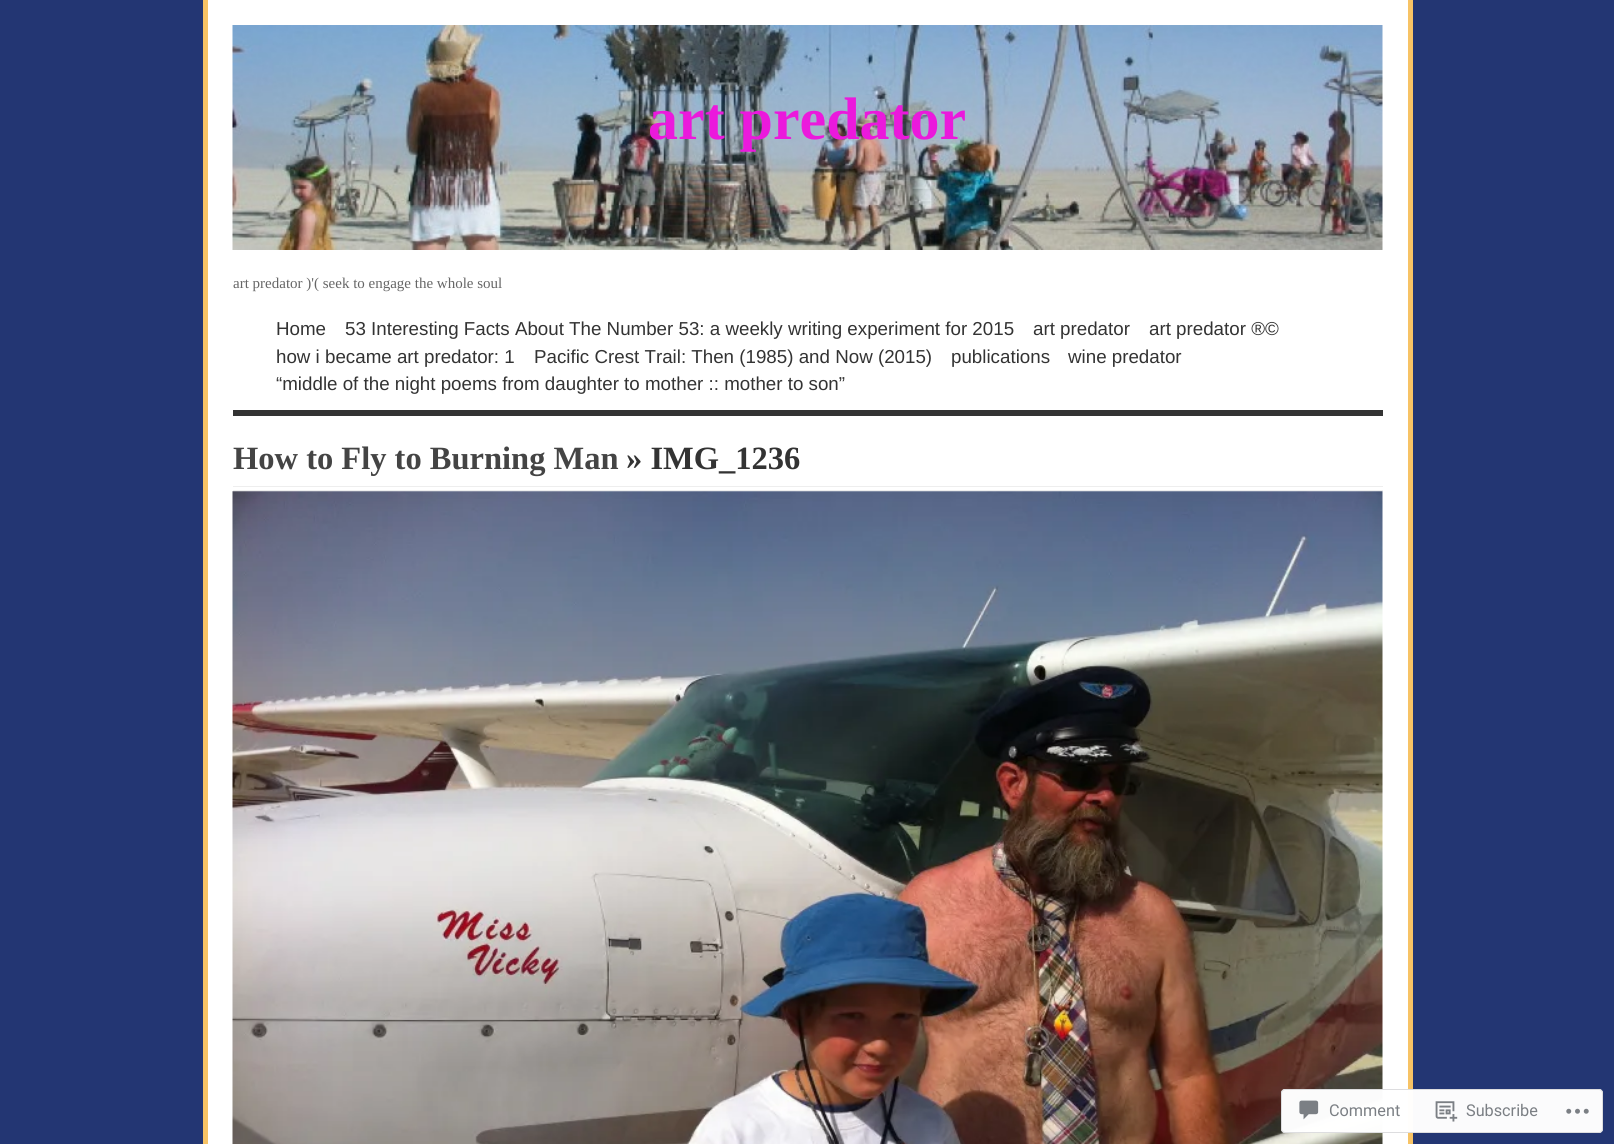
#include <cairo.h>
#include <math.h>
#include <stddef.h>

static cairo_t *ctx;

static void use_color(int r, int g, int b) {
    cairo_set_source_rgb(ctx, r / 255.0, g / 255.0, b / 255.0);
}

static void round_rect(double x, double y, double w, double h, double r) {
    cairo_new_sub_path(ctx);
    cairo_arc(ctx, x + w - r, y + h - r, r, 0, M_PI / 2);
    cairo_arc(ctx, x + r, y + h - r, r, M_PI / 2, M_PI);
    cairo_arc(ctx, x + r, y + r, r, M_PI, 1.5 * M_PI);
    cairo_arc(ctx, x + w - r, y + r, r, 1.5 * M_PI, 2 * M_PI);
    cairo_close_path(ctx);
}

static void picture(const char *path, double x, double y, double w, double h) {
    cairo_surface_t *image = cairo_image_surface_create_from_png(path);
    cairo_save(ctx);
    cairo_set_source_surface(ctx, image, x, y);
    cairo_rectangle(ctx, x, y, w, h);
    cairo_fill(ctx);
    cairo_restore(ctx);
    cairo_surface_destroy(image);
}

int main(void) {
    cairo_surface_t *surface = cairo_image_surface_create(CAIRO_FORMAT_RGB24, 1614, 1144);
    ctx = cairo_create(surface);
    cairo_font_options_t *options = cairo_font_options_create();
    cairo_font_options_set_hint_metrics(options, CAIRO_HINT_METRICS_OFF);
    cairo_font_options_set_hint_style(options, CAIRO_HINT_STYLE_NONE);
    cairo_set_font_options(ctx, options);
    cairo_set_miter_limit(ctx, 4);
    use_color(35, 54, 115);
    cairo_paint(ctx);
    use_color(255, 255, 255);
    cairo_rectangle(ctx, 208, 0, 1200, 1144);
    cairo_fill(ctx);
    use_color(247, 195, 101);
    cairo_rectangle(ctx, 1408, 0, 5, 1144);
    cairo_fill(ctx);
    cairo_rectangle(ctx, 203, 0, 5, 1144);
    cairo_fill(ctx);
    use_color(51, 51, 51);
    cairo_rectangle(ctx, 233, 410, 1150, 6);
    cairo_fill(ctx);
    picture("img1.png", 232, 25, 1151, 225);
    cairo_select_font_face(ctx, "Liberation Serif", CAIRO_FONT_SLANT_NORMAL, CAIRO_FONT_WEIGHT_BOLD);
    cairo_set_font_size(ctx, 60);
    use_color(235, 25, 220);
    cairo_move_to(ctx, 648, 139);
    cairo_show_text(ctx, "art predator");
    cairo_select_font_face(ctx, "Liberation Serif", CAIRO_FONT_SLANT_NORMAL, CAIRO_FONT_WEIGHT_NORMAL);
    cairo_set_font_size(ctx, 15);
    use_color(102, 102, 102);
    cairo_move_to(ctx, 233, 288);
    cairo_show_text(ctx, "art predator )'( seek to engage the whole soul");
    cairo_select_font_face(ctx, "Liberation Sans", CAIRO_FONT_SLANT_NORMAL, CAIRO_FONT_WEIGHT_NORMAL);
    cairo_set_font_size(ctx, 18.75);
    use_color(51, 51, 51);
    cairo_move_to(ctx, 276, 335);
    cairo_show_text(ctx, "Home");
    cairo_move_to(ctx, 345, 335);
    cairo_show_text(ctx, "53 Interesting Facts About The Number 53: a weekly writing experiment for 2015");
    cairo_move_to(ctx, 1033, 335);
    cairo_show_text(ctx, "art predator");
    cairo_move_to(ctx, 1149, 335);
    cairo_show_text(ctx, "art predator ®©");
    cairo_move_to(ctx, 276, 363);
    cairo_show_text(ctx, "how i became art predator: 1");
    cairo_move_to(ctx, 534, 363);
    cairo_show_text(ctx, "Pacific Crest Trail: Then (1985) and Now (2015)");
    cairo_move_to(ctx, 951, 363);
    cairo_show_text(ctx, "publications");
    cairo_move_to(ctx, 1068, 363);
    cairo_show_text(ctx, "wine predator");
    cairo_move_to(ctx, 276, 390);
    cairo_show_text(ctx, "“middle of the night poems from daughter to mother :: mother to son”");
    use_color(238, 238, 238);
    cairo_rectangle(ctx, 233, 486, 1150, 1);
    cairo_fill(ctx);
    cairo_rectangle(ctx, 233, 490, 1150, 1);
    cairo_fill(ctx);
    cairo_select_font_face(ctx, "Liberation Serif", CAIRO_FONT_SLANT_NORMAL, CAIRO_FONT_WEIGHT_BOLD);
    cairo_set_font_size(ctx, 32.5);
    use_color(68, 68, 68);
    cairo_move_to(ctx, 233, 469);
    cairo_show_text(ctx, "How to Fly to Burning Man");
    use_color(51, 51, 51);
    cairo_move_to(ctx, 626, 469);
    cairo_show_text(ctx, "» IMG_1236");
    picture("img2.png", 232, 491, 1151, 653);
    cairo_set_source_rgba(ctx, 1, 1, 1, 0.98);
    round_rect(1281, 1089, 322, 44, 4);
    cairo_fill(ctx);
    round_rect(1281.5, 1089.5, 321, 43, 3.5);
    cairo_set_source_rgba(ctx, 0.863, 0.863, 0.871, 0.98);
    cairo_set_line_width(ctx, 1);
    cairo_stroke(ctx);
    picture("img3.png", 1299, 1100, 20, 20);
    cairo_select_font_face(ctx, "Roboto", CAIRO_FONT_SLANT_NORMAL, CAIRO_FONT_WEIGHT_NORMAL);
    cairo_set_font_size(ctx, 16.25);
    use_color(123, 127, 132);
    cairo_move_to(ctx, 1329, 1116);
    cairo_show_text(ctx, "Comment");
    picture("img4.png", 1435, 1101, 23, 21);
    cairo_move_to(ctx, 1466, 1116);
    cairo_show_text(ctx, "Subscribe");
    picture("img5.png", 1566, 1108, 23, 6);
    cairo_surface_write_to_png(surface, "result.png");
    cairo_font_options_destroy(options);
    cairo_destroy(ctx);
    cairo_surface_destroy(surface);
    return 0;
}
